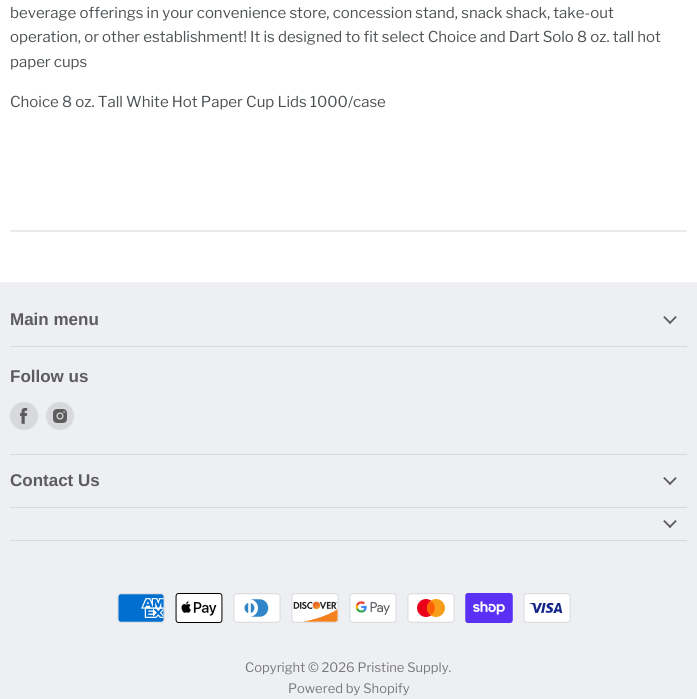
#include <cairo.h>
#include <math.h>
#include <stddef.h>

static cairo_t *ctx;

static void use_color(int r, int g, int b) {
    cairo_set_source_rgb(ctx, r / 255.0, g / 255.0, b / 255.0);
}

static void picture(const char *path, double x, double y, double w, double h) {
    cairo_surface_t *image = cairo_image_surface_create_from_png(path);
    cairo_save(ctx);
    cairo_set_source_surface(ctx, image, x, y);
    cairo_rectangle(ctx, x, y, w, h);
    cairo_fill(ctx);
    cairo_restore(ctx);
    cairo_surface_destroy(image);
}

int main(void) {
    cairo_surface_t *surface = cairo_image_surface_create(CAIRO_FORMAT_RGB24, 697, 699);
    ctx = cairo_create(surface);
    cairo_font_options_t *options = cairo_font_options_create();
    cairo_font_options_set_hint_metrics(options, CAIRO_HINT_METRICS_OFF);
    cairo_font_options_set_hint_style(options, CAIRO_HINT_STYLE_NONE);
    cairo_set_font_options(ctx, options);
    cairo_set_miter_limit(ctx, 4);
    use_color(255, 255, 255);
    cairo_paint(ctx);
    cairo_select_font_face(ctx, "Libre Franklin", CAIRO_FONT_SLANT_NORMAL, CAIRO_FONT_WEIGHT_NORMAL);
    cairo_set_font_size(ctx, 15);
    use_color(76, 81, 84);
    cairo_move_to(ctx, 10, 18);
    cairo_show_text(ctx, "beverage offerings in your convenience store, concession stand, snack shack, take-out");
    cairo_move_to(ctx, 10, 42);
    cairo_show_text(ctx, "operation, or other establishment! It is designed to fit select Choice and Dart Solo 8 oz. tall hot");
    cairo_move_to(ctx, 10, 67);
    cairo_show_text(ctx, "paper cups");
    cairo_move_to(ctx, 10, 107);
    cairo_show_text(ctx, "Choice 8 oz. Tall White Hot Paper Cup Lids 1000/case");
    use_color(235, 235, 235);
    cairo_rectangle(ctx, 10, 230, 677, 2);
    cairo_fill(ctx);
    use_color(237, 239, 243);
    cairo_rectangle(ctx, 0, 282, 697, 417);
    cairo_fill(ctx);
    use_color(215, 217, 220);
    cairo_rectangle(ctx, 10, 346, 677, 1);
    cairo_fill(ctx);
    cairo_select_font_face(ctx, "Arimo", CAIRO_FONT_SLANT_NORMAL, CAIRO_FONT_WEIGHT_BOLD);
    cairo_set_font_size(ctx, 17);
    use_color(92, 92, 92);
    cairo_move_to(ctx, 10, 325);
    cairo_show_text(ctx, "Main menu");
    picture("img1.png", 663, 316, 14, 8);
    use_color(215, 217, 220);
    cairo_rectangle(ctx, 10, 454, 677, 1);
    cairo_fill(ctx);
    use_color(92, 92, 92);
    cairo_move_to(ctx, 10, 382);
    cairo_show_text(ctx, "Follow us");
    use_color(215, 217, 220);
    cairo_new_path(ctx);
    cairo_arc(ctx, 24, 416, 14, 0, 2 * M_PI);
    cairo_fill(ctx);
    picture("img2.png", 20, 408, 8, 16);
    cairo_arc(ctx, 60, 416, 14, 0, 2 * M_PI);
    cairo_fill(ctx);
    picture("img3.png", 53, 409, 14, 14);
    cairo_rectangle(ctx, 10, 507, 677, 1);
    cairo_fill(ctx);
    use_color(92, 92, 92);
    cairo_move_to(ctx, 10, 486);
    cairo_show_text(ctx, "Contact Us");
    picture("img1.png", 663, 477, 14, 8);
    use_color(215, 217, 220);
    cairo_rectangle(ctx, 10, 540, 677, 1);
    cairo_fill(ctx);
    picture("img1.png", 663, 520, 14, 8);
    picture("img4.png", 117, 593, 48, 30);
    picture("img5.png", 175, 593, 48, 30);
    picture("img6.png", 233, 593, 48, 30);
    picture("img7.png", 291, 593, 48, 30);
    picture("img8.png", 349, 593, 48, 30);
    picture("img9.png", 407, 593, 48, 30);
    picture("img10.png", 465, 593, 48, 30);
    picture("img11.png", 523, 593, 48, 30);
    cairo_select_font_face(ctx, "Libre Franklin", CAIRO_FONT_SLANT_NORMAL, CAIRO_FONT_WEIGHT_NORMAL);
    cairo_set_font_size(ctx, 13);
    use_color(121, 121, 122);
    cairo_move_to(ctx, 245, 672);
    cairo_show_text(ctx, "Copyright © 2026 Pristine Supply.");
    cairo_move_to(ctx, 288, 693);
    cairo_show_text(ctx, "Powered by Shopify");
    cairo_surface_write_to_png(surface, "result.png");
    cairo_font_options_destroy(options);
    cairo_destroy(ctx);
    cairo_surface_destroy(surface);
    return 0;
}
